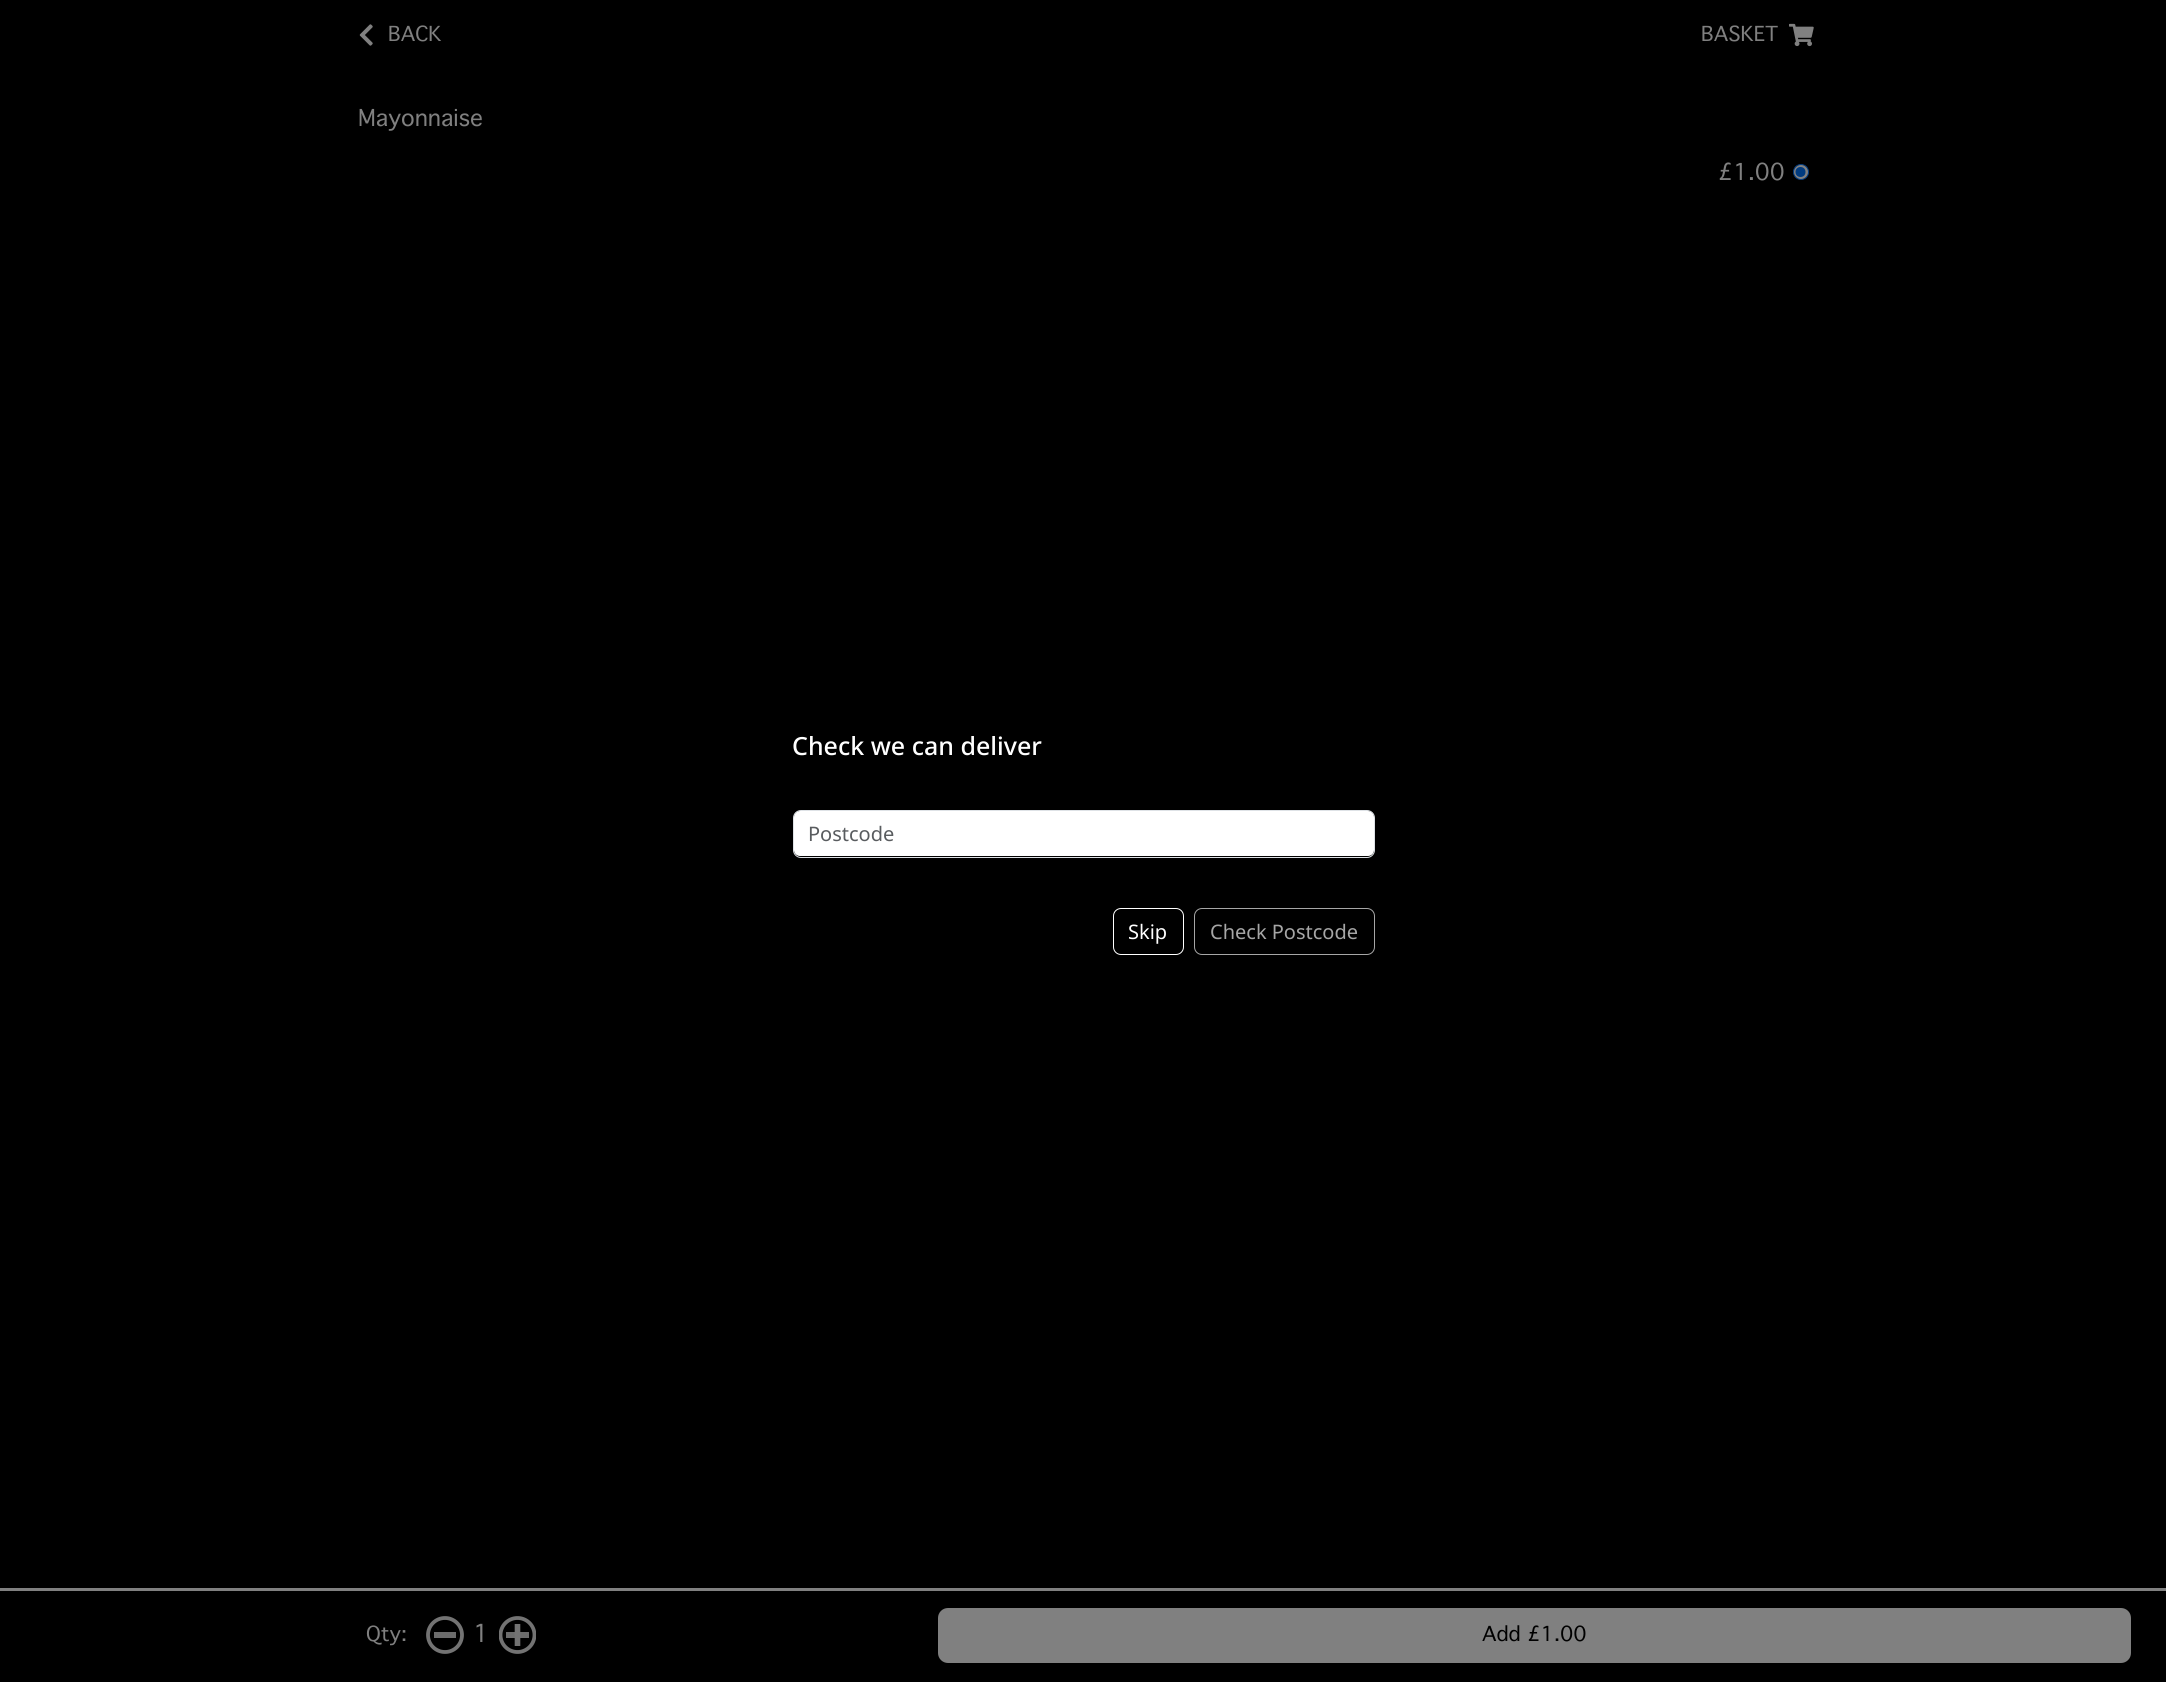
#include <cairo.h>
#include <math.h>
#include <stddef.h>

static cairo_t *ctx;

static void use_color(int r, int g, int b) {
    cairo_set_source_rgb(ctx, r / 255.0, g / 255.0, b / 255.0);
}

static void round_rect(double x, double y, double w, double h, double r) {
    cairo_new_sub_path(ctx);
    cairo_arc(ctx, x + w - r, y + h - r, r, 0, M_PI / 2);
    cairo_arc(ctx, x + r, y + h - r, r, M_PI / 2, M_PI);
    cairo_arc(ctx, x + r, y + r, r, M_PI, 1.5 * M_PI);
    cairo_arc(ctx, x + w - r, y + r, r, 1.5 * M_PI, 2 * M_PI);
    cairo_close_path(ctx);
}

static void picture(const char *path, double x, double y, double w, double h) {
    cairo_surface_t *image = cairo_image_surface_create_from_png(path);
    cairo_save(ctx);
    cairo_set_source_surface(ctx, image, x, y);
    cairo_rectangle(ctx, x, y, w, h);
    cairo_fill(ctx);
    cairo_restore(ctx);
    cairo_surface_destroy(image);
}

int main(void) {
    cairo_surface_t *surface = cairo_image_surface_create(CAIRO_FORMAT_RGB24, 2166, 1682);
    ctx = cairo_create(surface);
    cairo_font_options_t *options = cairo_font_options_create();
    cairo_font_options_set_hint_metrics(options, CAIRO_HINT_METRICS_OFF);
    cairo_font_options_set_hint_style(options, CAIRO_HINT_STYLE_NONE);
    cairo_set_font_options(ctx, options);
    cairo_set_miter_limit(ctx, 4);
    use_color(0, 0, 0);
    cairo_paint(ctx);
    picture("img1.png", 359, 24, 14, 22);
    cairo_select_font_face(ctx, "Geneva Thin", CAIRO_FONT_SLANT_NORMAL, CAIRO_FONT_WEIGHT_NORMAL);
    cairo_set_font_size(ctx, 20);
    use_color(128, 128, 128);
    cairo_move_to(ctx, 388, 41);
    cairo_show_text(ctx, "BACK");
    cairo_move_to(ctx, 1701, 41);
    cairo_show_text(ctx, "BASKET");
    picture("img2.png", 1789, 23, 25, 24);
    cairo_set_font_size(ctx, 22.5);
    cairo_move_to(ctx, 358, 126);
    cairo_show_text(ctx, "Mayonnaise");
    cairo_move_to(ctx, 1718, 180);
    cairo_show_text(ctx, "£1.00");
    cairo_new_path(ctx);
    cairo_arc(ctx, 1801, 172, 7.5, 0, 2 * M_PI);
    cairo_fill_preserve(ctx);
    use_color(0, 59, 128);
    cairo_set_line_width(ctx, 1);
    cairo_stroke(ctx);
    cairo_arc(ctx, 1800.5, 172, 5, 0, 2 * M_PI);
    cairo_fill(ctx);
    use_color(128, 128, 128);
    cairo_rectangle(ctx, 0, 1588, 2166, 3);
    cairo_fill(ctx);
    cairo_set_font_size(ctx, 20);
    cairo_move_to(ctx, 366, 1641);
    cairo_show_text(ctx, "Qty:");
    cairo_new_path(ctx);
    cairo_arc(ctx, 445, 1635, 17, 0, 2 * M_PI);
    use_color(115, 115, 115);
    cairo_set_line_width(ctx, 3.8);
    cairo_stroke(ctx);
    use_color(108, 108, 108);
    cairo_rectangle(ctx, 434, 1632, 22, 6);
    cairo_fill(ctx);
    cairo_set_font_size(ctx, 24);
    use_color(128, 128, 128);
    cairo_move_to(ctx, 473, 1642);
    cairo_show_text(ctx, "1");
    cairo_save(ctx);
    cairo_rectangle(ctx, 499, 1616, 37, 38);
    cairo_clip(ctx);
    cairo_arc(ctx, 517.5, 1635, 17, 0, 2 * M_PI);
    use_color(115, 115, 115);
    cairo_stroke(ctx);
    cairo_restore(ctx);
    use_color(108, 108, 108);
    cairo_rectangle(ctx, 506, 1632, 23, 6);
    cairo_fill(ctx);
    cairo_new_path(ctx);
    cairo_move_to(ctx, 517.5, 1624);
    cairo_line_to(ctx, 517.5, 1646);
    use_color(115, 115, 115);
    cairo_set_line_width(ctx, 5.6);
    cairo_stroke(ctx);
    use_color(128, 128, 128);
    round_rect(938, 1608, 1193, 55, 10);
    cairo_fill(ctx);
    cairo_set_font_size(ctx, 20);
    use_color(0, 0, 0);
    cairo_move_to(ctx, 1482, 1641);
    cairo_show_text(ctx, "Add £1.00");
    cairo_select_font_face(ctx, "Noto Sans Medium", CAIRO_FONT_SLANT_NORMAL, CAIRO_FONT_WEIGHT_NORMAL);
    cairo_set_font_size(ctx, 25);
    use_color(255, 255, 255);
    cairo_move_to(ctx, 792, 755);
    cairo_show_text(ctx, "Check we can deliver");
    round_rect(794, 811, 580, 45, 6);
    cairo_fill(ctx);
    round_rect(793.5, 810.5, 581, 47, 7.5);
    use_color(222, 226, 230);
    cairo_set_line_width(ctx, 1);
    cairo_stroke(ctx);
    cairo_select_font_face(ctx, "Noto Sans", CAIRO_FONT_SLANT_NORMAL, CAIRO_FONT_WEIGHT_NORMAL);
    cairo_set_font_size(ctx, 20);
    use_color(89, 92, 95);
    cairo_move_to(ctx, 808, 841);
    cairo_show_text(ctx, "Postcode");
    round_rect(1113.5, 908.5, 70, 46, 7.5);
    use_color(255, 255, 255);
    cairo_stroke(ctx);
    cairo_move_to(ctx, 1128, 939);
    cairo_show_text(ctx, "Skip");
    round_rect(1194.5, 908.5, 180, 46, 7.5);
    use_color(166, 166, 166);
    cairo_stroke(ctx);
    cairo_move_to(ctx, 1210, 939);
    cairo_show_text(ctx, "Check Postcode");
    cairo_surface_write_to_png(surface, "result.png");
    cairo_font_options_destroy(options);
    cairo_destroy(ctx);
    cairo_surface_destroy(surface);
    return 0;
}
